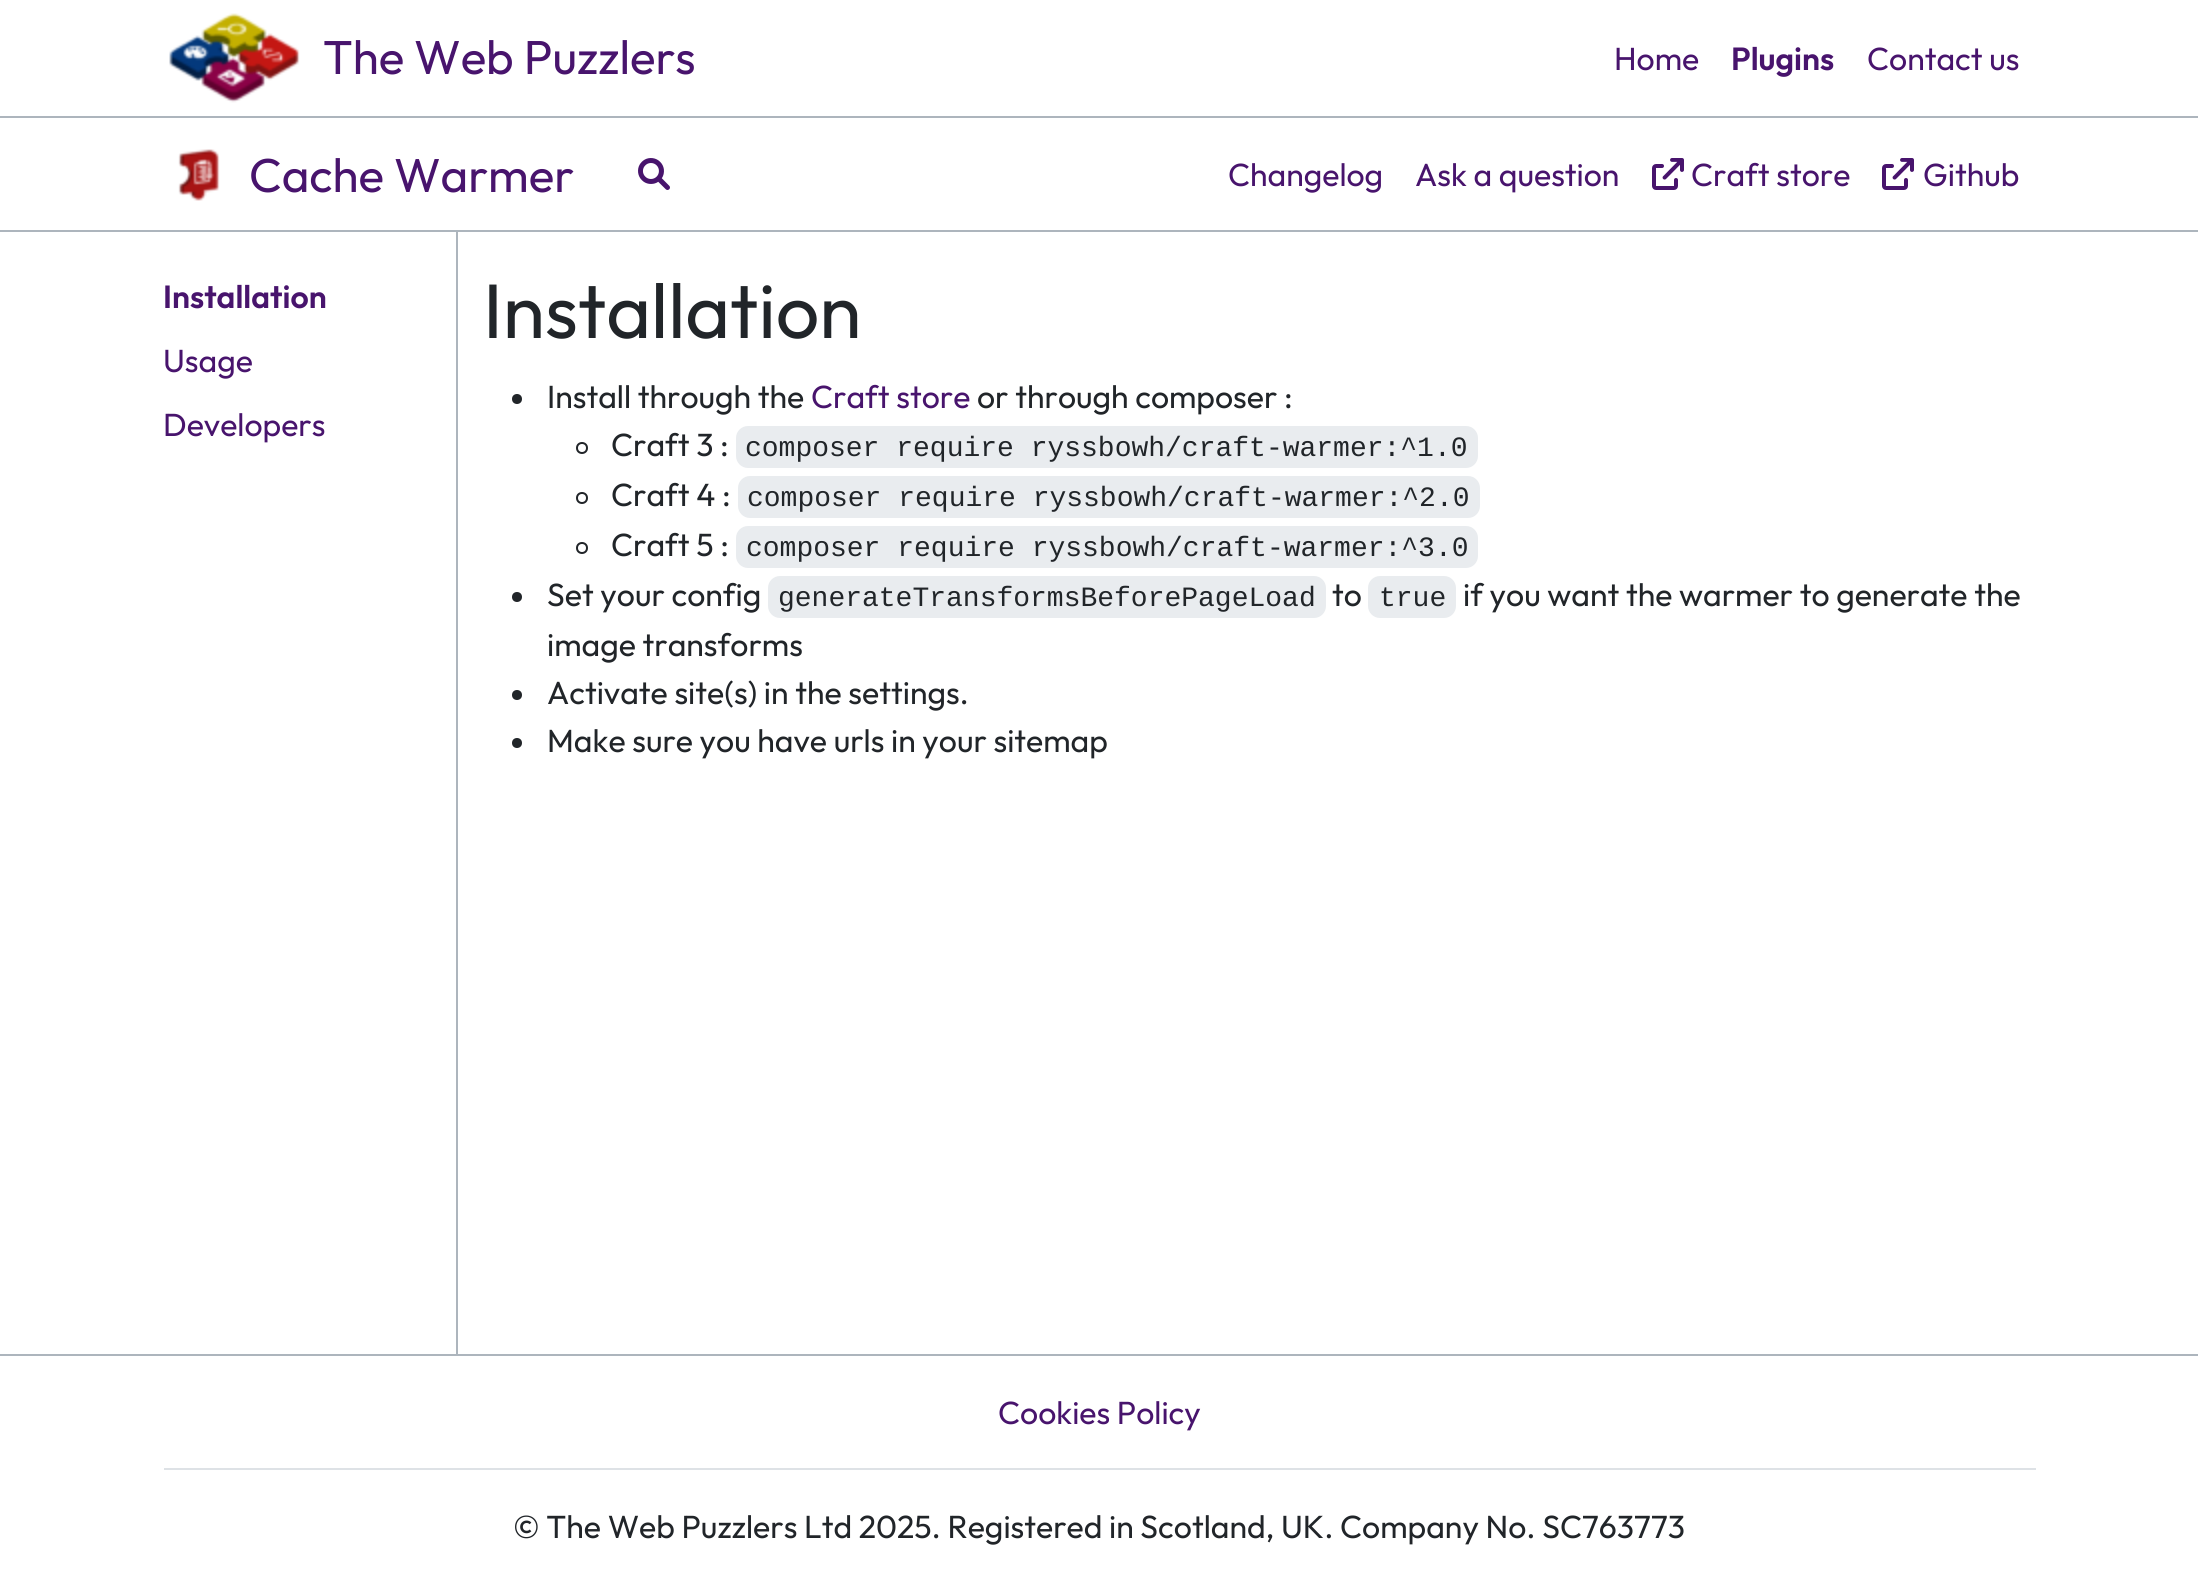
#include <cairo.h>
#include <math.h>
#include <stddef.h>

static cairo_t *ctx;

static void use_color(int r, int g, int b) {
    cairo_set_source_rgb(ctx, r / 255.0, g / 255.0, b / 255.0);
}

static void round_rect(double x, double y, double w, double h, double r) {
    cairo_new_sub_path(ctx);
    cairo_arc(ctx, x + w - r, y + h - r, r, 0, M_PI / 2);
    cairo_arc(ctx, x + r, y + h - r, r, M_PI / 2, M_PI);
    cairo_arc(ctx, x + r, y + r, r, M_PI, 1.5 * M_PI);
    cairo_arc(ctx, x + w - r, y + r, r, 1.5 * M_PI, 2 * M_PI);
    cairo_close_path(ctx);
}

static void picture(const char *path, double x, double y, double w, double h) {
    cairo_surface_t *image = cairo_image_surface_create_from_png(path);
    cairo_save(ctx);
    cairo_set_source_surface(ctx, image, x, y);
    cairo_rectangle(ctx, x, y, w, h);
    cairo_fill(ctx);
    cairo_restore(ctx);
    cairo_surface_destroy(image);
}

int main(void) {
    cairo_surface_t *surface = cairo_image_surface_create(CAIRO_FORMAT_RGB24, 2198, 1582);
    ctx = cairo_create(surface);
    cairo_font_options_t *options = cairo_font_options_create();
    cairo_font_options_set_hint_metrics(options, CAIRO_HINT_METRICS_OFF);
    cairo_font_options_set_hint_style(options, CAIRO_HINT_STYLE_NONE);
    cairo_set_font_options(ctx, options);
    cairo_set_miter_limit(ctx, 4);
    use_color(255, 255, 255);
    cairo_paint(ctx);
    use_color(173, 181, 189);
    cairo_rectangle(ctx, 0, 230, 2198, 2);
    cairo_fill(ctx);
    picture("img1.png", 169, 13, 131, 90);
    cairo_select_font_face(ctx, "Outfit", CAIRO_FONT_SLANT_NORMAL, CAIRO_FONT_WEIGHT_NORMAL);
    cairo_set_font_size(ctx, 47.5);
    use_color(72, 20, 109);
    cairo_move_to(ctx, 323, 74);
    cairo_show_text(ctx, "The Web Puzzlers");
    cairo_set_font_size(ctx, 32);
    cairo_move_to(ctx, 1614, 70);
    cairo_show_text(ctx, "Home");
    cairo_select_font_face(ctx, "Outfit SemiBold", CAIRO_FONT_SLANT_NORMAL, CAIRO_FONT_WEIGHT_NORMAL);
    cairo_move_to(ctx, 1731, 70);
    cairo_show_text(ctx, "Plugins");
    cairo_select_font_face(ctx, "Outfit", CAIRO_FONT_SLANT_NORMAL, CAIRO_FONT_WEIGHT_NORMAL);
    cairo_move_to(ctx, 1867, 70);
    cairo_show_text(ctx, "Contact us");
    use_color(173, 181, 189);
    cairo_rectangle(ctx, 0, 116, 2198, 2);
    cairo_fill(ctx);
    picture("img2.png", 178, 149, 42, 52);
    cairo_set_font_size(ctx, 47.5);
    use_color(72, 20, 109);
    cairo_move_to(ctx, 249, 192);
    cairo_show_text(ctx, "Cache Warmer");
    picture("img3.png", 638, 158, 32, 32);
    cairo_set_font_size(ctx, 32);
    cairo_move_to(ctx, 1228, 186);
    cairo_show_text(ctx, "Changelog");
    cairo_move_to(ctx, 1415, 186);
    cairo_show_text(ctx, "Ask a question");
    picture("img4.png", 1652, 158, 32, 32);
    cairo_move_to(ctx, 1691, 186);
    cairo_show_text(ctx, "Craft store");
    picture("img4.png", 1882, 158, 32, 32);
    cairo_move_to(ctx, 1923, 186);
    cairo_show_text(ctx, "Github");
    use_color(173, 181, 189);
    cairo_rectangle(ctx, 456, 232, 2, 1122);
    cairo_fill(ctx);
    cairo_select_font_face(ctx, "Outfit SemiBold", CAIRO_FONT_SLANT_NORMAL, CAIRO_FONT_WEIGHT_NORMAL);
    use_color(72, 20, 109);
    cairo_move_to(ctx, 163, 308);
    cairo_show_text(ctx, "Installation");
    cairo_select_font_face(ctx, "Outfit", CAIRO_FONT_SLANT_NORMAL, CAIRO_FONT_WEIGHT_NORMAL);
    cairo_move_to(ctx, 163, 372);
    cairo_show_text(ctx, "Usage");
    cairo_move_to(ctx, 163, 436);
    cairo_show_text(ctx, "Developers");
    cairo_set_font_size(ctx, 77);
    use_color(33, 37, 41);
    cairo_move_to(ctx, 483, 338);
    cairo_show_text(ctx, "Installation");
    cairo_new_path(ctx);
    cairo_arc(ctx, 517, 399, 5, 0, 2 * M_PI);
    cairo_fill(ctx);
    cairo_set_font_size(ctx, 32);
    cairo_move_to(ctx, 547, 408);
    cairo_show_text(ctx, "Install through the");
    use_color(72, 20, 109);
    cairo_move_to(ctx, 811, 408);
    cairo_show_text(ctx, "Craft store");
    use_color(33, 37, 41);
    cairo_move_to(ctx, 977, 408);
    cairo_show_text(ctx, "or through composer :");
    cairo_new_path(ctx);
    cairo_arc(ctx, 582, 448, 5, 0, 2 * M_PI);
    cairo_stroke(ctx);
    cairo_move_to(ctx, 611, 456);
    cairo_show_text(ctx, "Craft 3 :");
    use_color(233, 236, 239);
    round_rect(736, 426, 742, 42, 12);
    cairo_fill(ctx);
    cairo_select_font_face(ctx, "Liberation Mono", CAIRO_FONT_SLANT_NORMAL, CAIRO_FONT_WEIGHT_NORMAL);
    cairo_set_font_size(ctx, 28);
    use_color(33, 37, 41);
    cairo_move_to(ctx, 745, 456);
    cairo_show_text(ctx, "composer require ryssbowh/craft-warmer:^1.0");
    cairo_new_path(ctx);
    cairo_arc(ctx, 582, 498, 5, 0, 2 * M_PI);
    cairo_stroke(ctx);
    cairo_select_font_face(ctx, "Outfit", CAIRO_FONT_SLANT_NORMAL, CAIRO_FONT_WEIGHT_NORMAL);
    cairo_set_font_size(ctx, 32);
    cairo_move_to(ctx, 611, 506);
    cairo_show_text(ctx, "Craft 4 :");
    use_color(233, 236, 239);
    round_rect(738, 476, 742, 42, 12);
    cairo_fill(ctx);
    cairo_select_font_face(ctx, "Liberation Mono", CAIRO_FONT_SLANT_NORMAL, CAIRO_FONT_WEIGHT_NORMAL);
    cairo_set_font_size(ctx, 28);
    use_color(33, 37, 41);
    cairo_move_to(ctx, 747, 506);
    cairo_show_text(ctx, "composer require ryssbowh/craft-warmer:^2.0");
    cairo_new_path(ctx);
    cairo_arc(ctx, 582, 548, 5, 0, 2 * M_PI);
    cairo_stroke(ctx);
    cairo_select_font_face(ctx, "Outfit", CAIRO_FONT_SLANT_NORMAL, CAIRO_FONT_WEIGHT_NORMAL);
    cairo_set_font_size(ctx, 32);
    cairo_move_to(ctx, 611, 556);
    cairo_show_text(ctx, "Craft 5 :");
    use_color(233, 236, 239);
    round_rect(736, 526, 742, 42, 12);
    cairo_fill(ctx);
    cairo_select_font_face(ctx, "Liberation Mono", CAIRO_FONT_SLANT_NORMAL, CAIRO_FONT_WEIGHT_NORMAL);
    cairo_set_font_size(ctx, 28);
    use_color(33, 37, 41);
    cairo_move_to(ctx, 746, 556);
    cairo_show_text(ctx, "composer require ryssbowh/craft-warmer:^3.0");
    cairo_new_path(ctx);
    cairo_arc(ctx, 517, 597, 5, 0, 2 * M_PI);
    cairo_fill(ctx);
    cairo_select_font_face(ctx, "Outfit", CAIRO_FONT_SLANT_NORMAL, CAIRO_FONT_WEIGHT_NORMAL);
    cairo_set_font_size(ctx, 32);
    cairo_move_to(ctx, 547, 606);
    cairo_show_text(ctx, "Set your config");
    use_color(233, 236, 239);
    round_rect(768, 576, 558, 42, 12);
    cairo_fill(ctx);
    cairo_select_font_face(ctx, "Liberation Mono", CAIRO_FONT_SLANT_NORMAL, CAIRO_FONT_WEIGHT_NORMAL);
    cairo_set_font_size(ctx, 28);
    use_color(33, 37, 41);
    cairo_move_to(ctx, 778, 606);
    cairo_show_text(ctx, "generateTransformsBeforePageLoad");
    cairo_select_font_face(ctx, "Outfit", CAIRO_FONT_SLANT_NORMAL, CAIRO_FONT_WEIGHT_NORMAL);
    cairo_set_font_size(ctx, 32);
    cairo_move_to(ctx, 1332, 606);
    cairo_show_text(ctx, "to");
    use_color(233, 236, 239);
    round_rect(1368, 576, 88, 42, 12);
    cairo_fill(ctx);
    cairo_select_font_face(ctx, "Liberation Mono", CAIRO_FONT_SLANT_NORMAL, CAIRO_FONT_WEIGHT_NORMAL);
    cairo_set_font_size(ctx, 28);
    use_color(33, 37, 41);
    cairo_move_to(ctx, 1379, 606);
    cairo_show_text(ctx, "true");
    cairo_select_font_face(ctx, "Outfit", CAIRO_FONT_SLANT_NORMAL, CAIRO_FONT_WEIGHT_NORMAL);
    cairo_set_font_size(ctx, 32);
    cairo_move_to(ctx, 1463, 606);
    cairo_show_text(ctx, "if you want the warmer to generate the");
    cairo_move_to(ctx, 547, 656);
    cairo_show_text(ctx, "image transforms");
    cairo_new_path(ctx);
    cairo_arc(ctx, 517, 695, 5, 0, 2 * M_PI);
    cairo_fill(ctx);
    cairo_move_to(ctx, 547, 704);
    cairo_show_text(ctx, "Activate site(s) in the settings.");
    cairo_new_path(ctx);
    cairo_arc(ctx, 517, 743, 5, 0, 2 * M_PI);
    cairo_fill(ctx);
    cairo_move_to(ctx, 547, 752);
    cairo_show_text(ctx, "Make sure you have urls in your sitemap");
    use_color(173, 181, 189);
    cairo_rectangle(ctx, 0, 1354, 2198, 2);
    cairo_fill(ctx);
    use_color(222, 226, 230);
    cairo_rectangle(ctx, 164, 1468, 1872, 2);
    cairo_fill(ctx);
    use_color(72, 20, 109);
    cairo_move_to(ctx, 998, 1424);
    cairo_show_text(ctx, "Cookies Policy");
    use_color(33, 37, 41);
    cairo_move_to(ctx, 513, 1538);
    cairo_show_text(ctx, "© The Web Puzzlers Ltd 2025. Registered in Scotland, UK. Company No. SC763773");
    cairo_surface_write_to_png(surface, "result.png");
    cairo_font_options_destroy(options);
    cairo_destroy(ctx);
    cairo_surface_destroy(surface);
    return 0;
}
